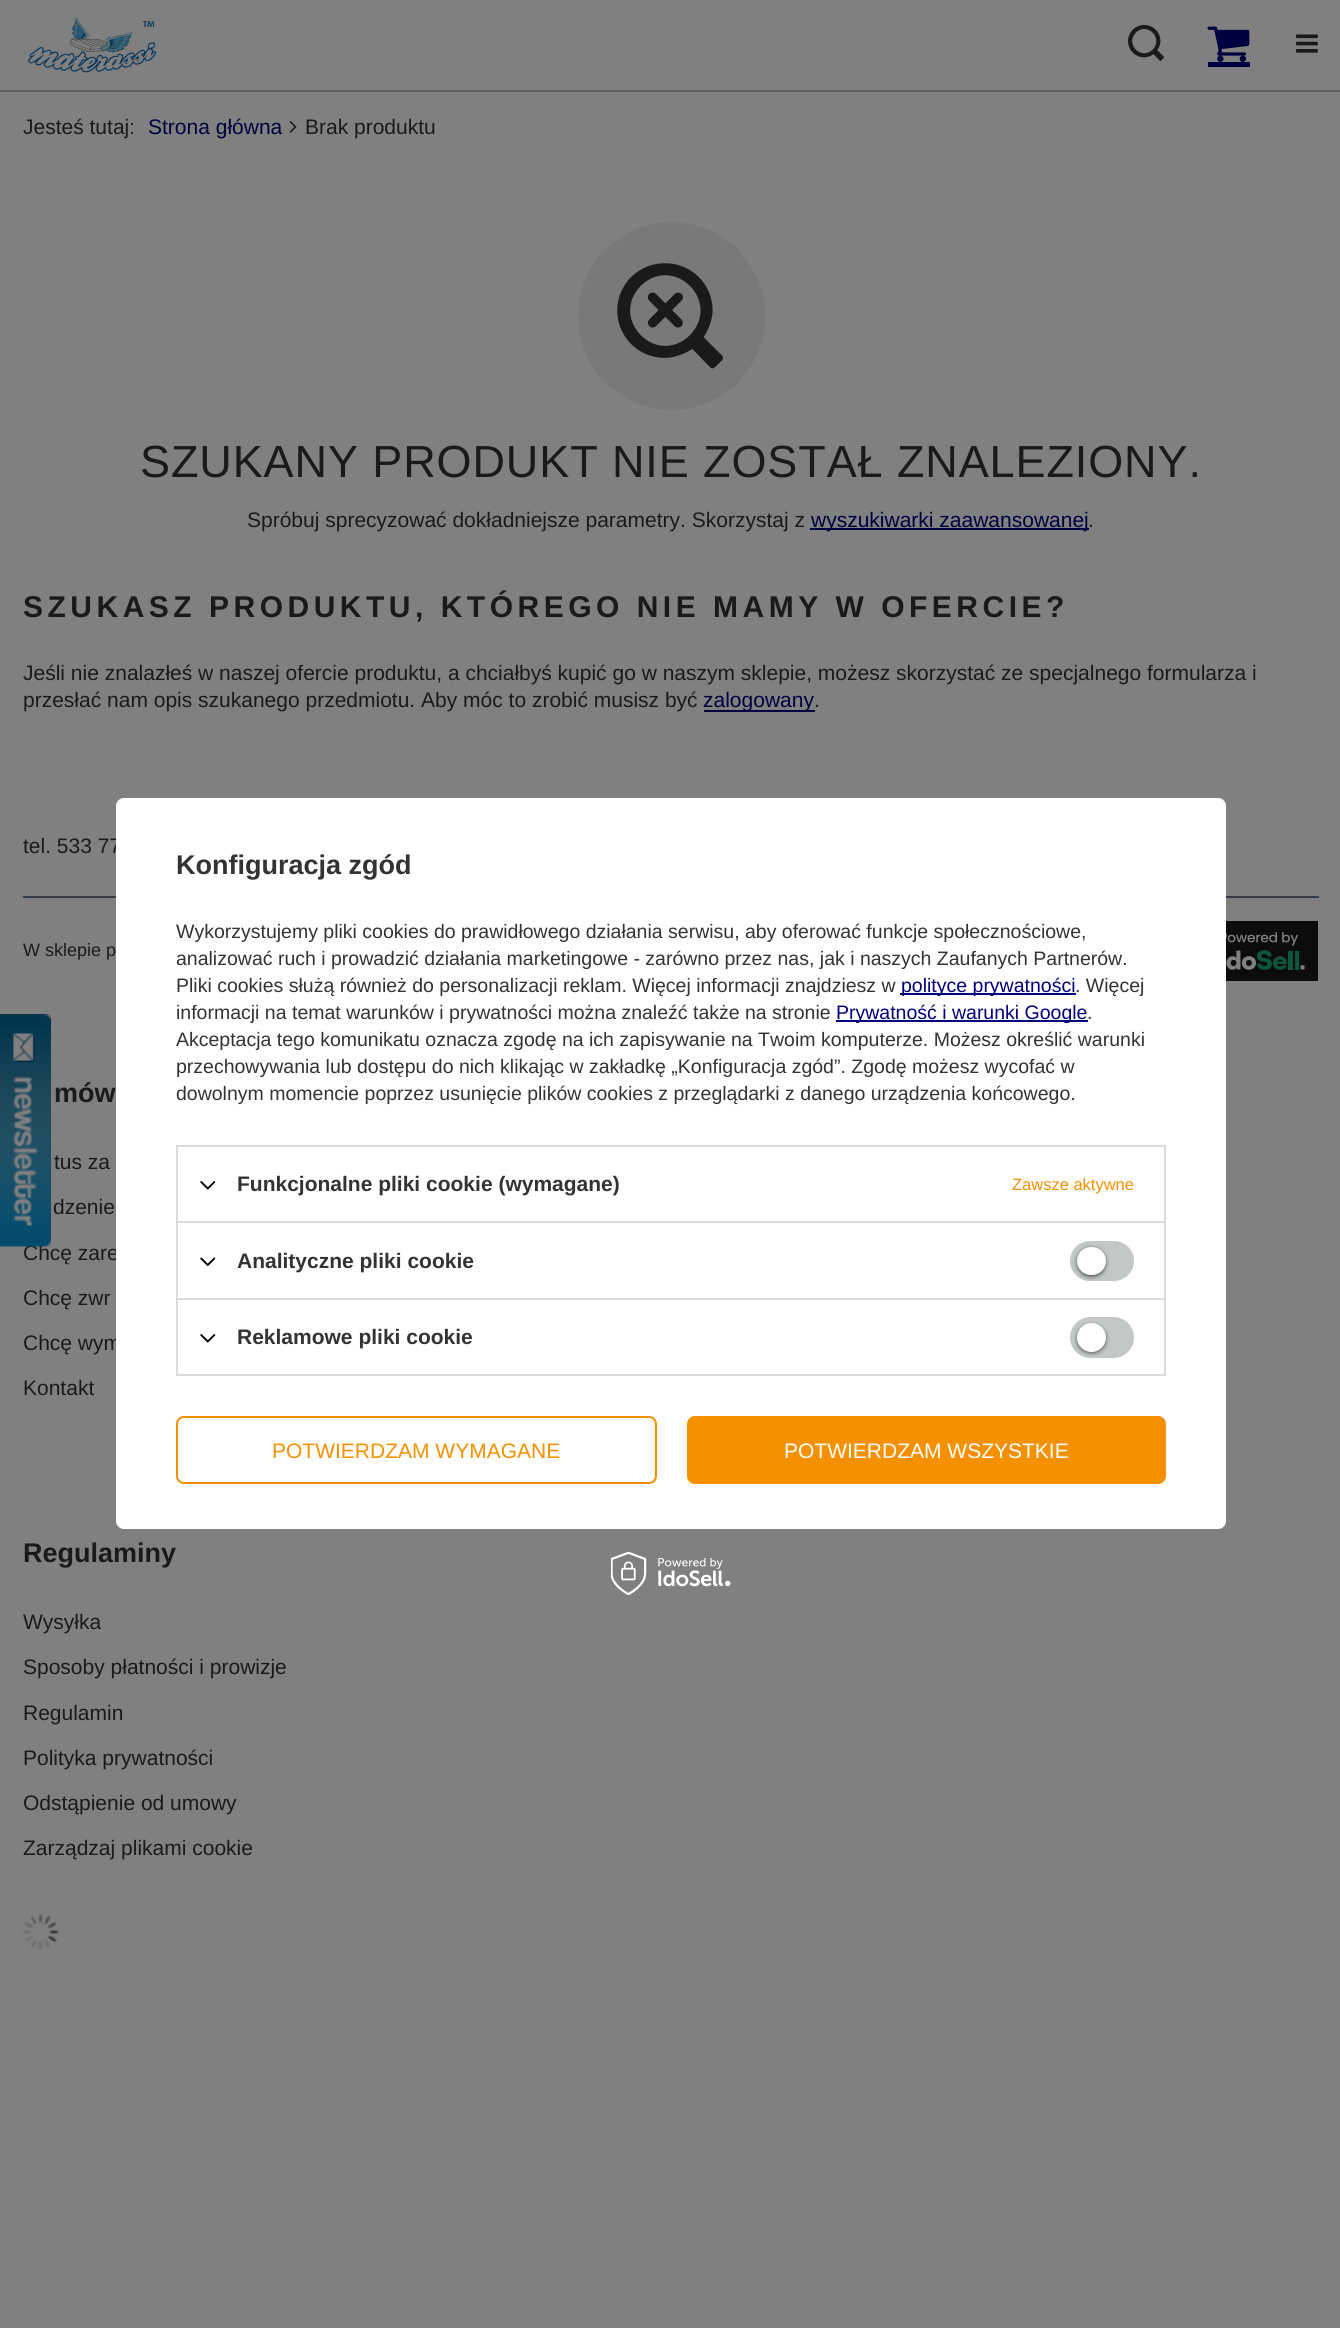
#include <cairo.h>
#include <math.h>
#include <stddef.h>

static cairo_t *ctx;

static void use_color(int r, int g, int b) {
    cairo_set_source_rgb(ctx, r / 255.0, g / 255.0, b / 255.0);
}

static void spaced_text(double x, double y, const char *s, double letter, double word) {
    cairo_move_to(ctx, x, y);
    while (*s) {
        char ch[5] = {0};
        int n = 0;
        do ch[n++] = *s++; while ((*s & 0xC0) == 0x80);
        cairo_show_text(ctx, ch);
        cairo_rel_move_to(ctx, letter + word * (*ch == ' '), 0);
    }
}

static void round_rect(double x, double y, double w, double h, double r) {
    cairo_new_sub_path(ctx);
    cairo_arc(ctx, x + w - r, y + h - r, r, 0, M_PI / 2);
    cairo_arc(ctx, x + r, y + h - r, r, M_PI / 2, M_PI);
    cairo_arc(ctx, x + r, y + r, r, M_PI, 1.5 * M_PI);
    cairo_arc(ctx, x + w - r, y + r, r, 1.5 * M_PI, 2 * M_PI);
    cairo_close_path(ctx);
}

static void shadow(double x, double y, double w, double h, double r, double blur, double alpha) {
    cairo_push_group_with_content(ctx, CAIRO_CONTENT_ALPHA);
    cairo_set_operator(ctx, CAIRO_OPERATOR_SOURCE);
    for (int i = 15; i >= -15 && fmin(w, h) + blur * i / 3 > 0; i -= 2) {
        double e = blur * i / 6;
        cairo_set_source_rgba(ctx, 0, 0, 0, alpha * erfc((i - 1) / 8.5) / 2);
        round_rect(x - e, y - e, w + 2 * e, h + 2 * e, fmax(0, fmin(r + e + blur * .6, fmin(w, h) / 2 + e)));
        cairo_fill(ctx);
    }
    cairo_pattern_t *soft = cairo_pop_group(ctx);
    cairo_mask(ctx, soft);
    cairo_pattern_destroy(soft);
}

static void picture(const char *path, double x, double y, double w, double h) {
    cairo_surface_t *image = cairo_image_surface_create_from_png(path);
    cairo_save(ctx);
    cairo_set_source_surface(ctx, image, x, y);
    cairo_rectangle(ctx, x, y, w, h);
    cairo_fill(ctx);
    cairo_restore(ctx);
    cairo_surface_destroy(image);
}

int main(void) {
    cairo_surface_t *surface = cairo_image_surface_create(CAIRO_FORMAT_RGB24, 1340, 2328);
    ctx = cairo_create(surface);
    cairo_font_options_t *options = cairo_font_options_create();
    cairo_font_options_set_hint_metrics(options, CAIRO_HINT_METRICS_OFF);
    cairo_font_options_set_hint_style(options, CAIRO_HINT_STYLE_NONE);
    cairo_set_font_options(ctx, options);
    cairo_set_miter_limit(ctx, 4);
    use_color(128, 128, 128);
    cairo_paint(ctx);
    use_color(98, 100, 100);
    cairo_rectangle(ctx, 0, 90, 1340, 2);
    cairo_fill(ctx);
    picture("img1.png", 28, 17, 129, 56);
    picture("img2.png", 1128, 24, 36, 37);
    picture("img3.png", 1207, 26, 43, 36);
    use_color(0, 0, 64);
    cairo_rectangle(ctx, 1208, 62, 42, 5);
    cairo_fill(ctx);
    picture("img4.png", 1296, 34, 22, 19);
    cairo_select_font_face(ctx, "Liberation Sans", CAIRO_FONT_SLANT_NORMAL, CAIRO_FONT_WEIGHT_NORMAL);
    cairo_set_font_size(ctx, 21);
    use_color(26, 26, 26);
    cairo_move_to(ctx, 23, 134);
    cairo_show_text(ctx, "Jesteś tutaj:");
    use_color(0, 0, 64);
    cairo_move_to(ctx, 148, 134);
    cairo_show_text(ctx, "Strona główna");
    picture("img5.png", 289, 121, 8, 12);
    use_color(26, 26, 26);
    cairo_move_to(ctx, 305, 134);
    cairo_show_text(ctx, "Brak produktu");
    use_color(121, 121, 121);
    round_rect(578, 222, 187, 188, 93.5);
    cairo_fill(ctx);
    picture("img6.png", 617, 263, 106, 106);
    cairo_set_font_size(ctx, 45);
    use_color(26, 26, 26);
    spaced_text(140, 477, "SZUKANY PRODUKT NIE ZOSTAŁ ZNALEZIONY.", 0.9, 0);
    cairo_set_font_size(ctx, 21);
    cairo_move_to(ctx, 247, 527);
    cairo_show_text(ctx, "Spróbuj sprecyzować dokładniejsze parametry. Skorzystaj z");
    use_color(0, 0, 64);
    cairo_rectangle(ctx, 810, 528, 279, 2);
    cairo_fill(ctx);
    cairo_move_to(ctx, 811, 527);
    cairo_show_text(ctx, "wyszukiwarki zaawansowanej");
    use_color(26, 26, 26);
    cairo_move_to(ctx, 1088, 527);
    cairo_show_text(ctx, ".");
    cairo_select_font_face(ctx, "Liberation Sans", CAIRO_FONT_SLANT_NORMAL, CAIRO_FONT_WEIGHT_BOLD);
    cairo_set_font_size(ctx, 30);
    spaced_text(23, 617, "SZUKASZ PRODUKTU, KTÓREGO NIE MAMY W OFERCIE?", 4.5, 0);
    cairo_select_font_face(ctx, "Liberation Sans", CAIRO_FONT_SLANT_NORMAL, CAIRO_FONT_WEIGHT_NORMAL);
    cairo_set_font_size(ctx, 21);
    cairo_move_to(ctx, 23, 680);
    cairo_show_text(ctx, "Jeśli nie znalazłeś w naszej ofercie produktu, a chciałbyś kupić go w naszym sklepie, możesz skorzystać ze specjalnego formularza i");
    cairo_move_to(ctx, 23, 707);
    cairo_show_text(ctx, "przesłać nam opis szukanego przedmiotu. Aby móc to zrobić musisz być");
    use_color(0, 0, 64);
    cairo_rectangle(ctx, 704, 710, 111, 2);
    cairo_fill(ctx);
    cairo_move_to(ctx, 703, 707);
    cairo_show_text(ctx, "zalogowany");
    use_color(26, 26, 26);
    cairo_move_to(ctx, 814, 707);
    cairo_show_text(ctx, ".");
    use_color(54, 60, 67);
    cairo_rectangle(ctx, 23, 896, 1296, 2);
    cairo_fill(ctx);
    use_color(26, 26, 26);
    cairo_move_to(ctx, 23, 853);
    cairo_show_text(ctx, "tel. 533 77");
    cairo_set_font_size(ctx, 18);
    cairo_move_to(ctx, 23, 956);
    cairo_show_text(ctx, "W sklepie p");
    picture("img7.png", 1226, 921, 92, 60);
    cairo_select_font_face(ctx, "Liberation Sans", CAIRO_FONT_SLANT_NORMAL, CAIRO_FONT_WEIGHT_BOLD);
    cairo_set_font_size(ctx, 27);
    cairo_move_to(ctx, 54, 1102);
    cairo_show_text(ctx, "mów");
    cairo_select_font_face(ctx, "Liberation Sans", CAIRO_FONT_SLANT_NORMAL, CAIRO_FONT_WEIGHT_NORMAL);
    cairo_set_font_size(ctx, 21);
    cairo_move_to(ctx, 54, 1169);
    cairo_show_text(ctx, "tus za");
    cairo_move_to(ctx, 53, 1214);
    cairo_show_text(ctx, "dzenie");
    cairo_move_to(ctx, 23, 1260);
    cairo_show_text(ctx, "Chcę zare");
    cairo_move_to(ctx, 23, 1305);
    cairo_show_text(ctx, "Chcę zwr");
    cairo_move_to(ctx, 23, 1350);
    cairo_show_text(ctx, "Chcę wym");
    cairo_move_to(ctx, 23, 1395);
    cairo_show_text(ctx, "Kontakt");
    cairo_select_font_face(ctx, "Liberation Sans", CAIRO_FONT_SLANT_NORMAL, CAIRO_FONT_WEIGHT_BOLD);
    cairo_set_font_size(ctx, 27);
    cairo_move_to(ctx, 23, 1562);
    cairo_show_text(ctx, "Regulaminy");
    cairo_select_font_face(ctx, "Liberation Sans", CAIRO_FONT_SLANT_NORMAL, CAIRO_FONT_WEIGHT_NORMAL);
    cairo_set_font_size(ctx, 21);
    cairo_move_to(ctx, 23, 1629);
    cairo_show_text(ctx, "Wysyłka");
    cairo_move_to(ctx, 23, 1674);
    cairo_show_text(ctx, "Sposoby płatności i prowizje");
    cairo_move_to(ctx, 23, 1720);
    cairo_show_text(ctx, "Regulamin");
    cairo_move_to(ctx, 23, 1765);
    cairo_show_text(ctx, "Polityka prywatności");
    cairo_move_to(ctx, 23, 1810);
    cairo_show_text(ctx, "Odstąpienie od umowy");
    cairo_move_to(ctx, 23, 1855);
    cairo_show_text(ctx, "Zarządzaj plikami cookie");
    picture("img8.png", 22, 1914, 37, 36);
    use_color(255, 255, 255);
    round_rect(116, 798, 1110, 731, 8);
    cairo_fill(ctx);
    cairo_select_font_face(ctx, "Liberation Sans", CAIRO_FONT_SLANT_NORMAL, CAIRO_FONT_WEIGHT_BOLD);
    cairo_set_font_size(ctx, 27);
    use_color(51, 51, 51);
    cairo_move_to(ctx, 176, 874);
    cairo_show_text(ctx, "Konfiguracja zgód");
    cairo_select_font_face(ctx, "Liberation Sans", CAIRO_FONT_SLANT_NORMAL, CAIRO_FONT_WEIGHT_NORMAL);
    cairo_set_font_size(ctx, 19.5);
    cairo_move_to(ctx, 176, 938);
    cairo_show_text(ctx, "Wykorzystujemy pliki cookies do prawidłowego działania serwisu, aby oferować funkcje społecznościowe,");
    cairo_move_to(ctx, 176, 965);
    cairo_show_text(ctx, "analizować ruch i prowadzić działania marketingowe - zarówno przez nas, jak i naszych Zaufanych Partnerów.");
    cairo_move_to(ctx, 176, 992);
    cairo_show_text(ctx, "Pliki cookies służą również do personalizacji reklam. Więcej informacji znajdziesz w");
    use_color(0, 0, 128);
    cairo_rectangle(ctx, 900, 993, 176, 2);
    cairo_fill(ctx);
    cairo_move_to(ctx, 901, 992);
    cairo_show_text(ctx, "polityce prywatności");
    use_color(51, 51, 51);
    cairo_move_to(ctx, 1075, 992);
    cairo_show_text(ctx, ". Więcej");
    cairo_move_to(ctx, 176, 1019);
    cairo_show_text(ctx, "informacji na temat warunków i prywatności można znaleźć także na stronie");
    use_color(0, 0, 128);
    cairo_rectangle(ctx, 836, 1020, 252, 2);
    cairo_fill(ctx);
    cairo_move_to(ctx, 836, 1019);
    cairo_show_text(ctx, "Prywatność i warunki Google");
    use_color(51, 51, 51);
    cairo_move_to(ctx, 1087, 1019);
    cairo_show_text(ctx, ".");
    cairo_move_to(ctx, 176, 1046);
    cairo_show_text(ctx, "Akceptacja tego komunikatu oznacza zgodę na ich zapisywanie na Twoim komputerze. Możesz określić warunki");
    cairo_move_to(ctx, 176, 1073);
    cairo_show_text(ctx, "przechowywania lub dostępu do nich klikając w zakładkę „Konfiguracja zgód”. Zgodę możesz wycofać w");
    cairo_move_to(ctx, 176, 1100);
    cairo_show_text(ctx, "dowolnym momencie poprzez usunięcie plików cookies z przeglądarki z danego urządzenia końcowego.");
    use_color(219, 219, 219);
    cairo_rectangle(ctx, 176, 1145, 990, 2);
    cairo_fill(ctx);
    cairo_rectangle(ctx, 1164, 1145, 2, 76);
    cairo_fill(ctx);
    cairo_rectangle(ctx, 176, 1145, 2, 76);
    cairo_fill(ctx);
    picture("img9.png", 200, 1181, 16, 9);
    cairo_select_font_face(ctx, "Liberation Sans", CAIRO_FONT_SLANT_NORMAL, CAIRO_FONT_WEIGHT_BOLD);
    cairo_set_font_size(ctx, 21);
    use_color(51, 51, 51);
    cairo_move_to(ctx, 237, 1191);
    cairo_show_text(ctx, "Funkcjonalne pliki cookie (wymagane)");
    cairo_select_font_face(ctx, "Liberation Sans", CAIRO_FONT_SLANT_NORMAL, CAIRO_FONT_WEIGHT_NORMAL);
    cairo_set_font_size(ctx, 16.5);
    use_color(245, 144, 0);
    cairo_move_to(ctx, 1012, 1190);
    cairo_show_text(ctx, "Zawsze aktywne");
    use_color(219, 219, 219);
    cairo_rectangle(ctx, 176, 1221, 990, 2);
    cairo_fill(ctx);
    cairo_rectangle(ctx, 1164, 1221, 2, 77);
    cairo_fill(ctx);
    cairo_rectangle(ctx, 176, 1221, 2, 77);
    cairo_fill(ctx);
    picture("img10.png", 200, 1257, 16, 9);
    cairo_select_font_face(ctx, "Liberation Sans", CAIRO_FONT_SLANT_NORMAL, CAIRO_FONT_WEIGHT_BOLD);
    cairo_set_font_size(ctx, 21);
    use_color(51, 51, 51);
    cairo_move_to(ctx, 237, 1268);
    cairo_show_text(ctx, "Analityczne pliki cookie");
    use_color(196, 199, 200);
    round_rect(1070, 1241, 64, 40, 20);
    cairo_fill(ctx);
    use_color(0, 0, 0);
    shadow(1077, 1248, 29, 29, 14.5, 2, 0.56);
    use_color(255, 255, 255);
    round_rect(1077, 1247, 29, 28, 14);
    cairo_fill(ctx);
    cairo_rectangle(ctx, 177, 1299, 988, 76);
    use_color(219, 219, 219);
    cairo_stroke(ctx);
    picture("img9.png", 200, 1334, 16, 9);
    use_color(51, 51, 51);
    cairo_move_to(ctx, 237, 1344);
    cairo_show_text(ctx, "Reklamowe pliki cookie");
    use_color(196, 199, 200);
    round_rect(1070, 1317, 64, 41, 20.5);
    cairo_fill(ctx);
    use_color(0, 0, 0);
    shadow(1077, 1325, 29, 28, 14, 2, 0.56);
    use_color(255, 255, 255);
    cairo_arc(ctx, 1091.5, 1337.5, 14.5, 0, 2 * M_PI);
    cairo_fill(ctx);
    round_rect(177, 1417, 479, 66, 7);
    use_color(245, 144, 0);
    cairo_stroke(ctx);
    cairo_select_font_face(ctx, "Liberation Sans", CAIRO_FONT_SLANT_NORMAL, CAIRO_FONT_WEIGHT_NORMAL);
    cairo_move_to(ctx, 272, 1458);
    cairo_show_text(ctx, "POTWIERDZAM WYMAGANE");
    round_rect(688, 1417, 477, 66, 7);
    cairo_fill_preserve(ctx);
    cairo_stroke(ctx);
    use_color(255, 255, 255);
    cairo_move_to(ctx, 784, 1458);
    cairo_show_text(ctx, "POTWIERDZAM WSZYSTKIE");
    picture("img11.png", 611, 1552, 120, 43);
    picture("img12.png", 0, 1014, 51, 233);
    cairo_surface_write_to_png(surface, "result.png");
    cairo_font_options_destroy(options);
    cairo_destroy(ctx);
    cairo_surface_destroy(surface);
    return 0;
}
